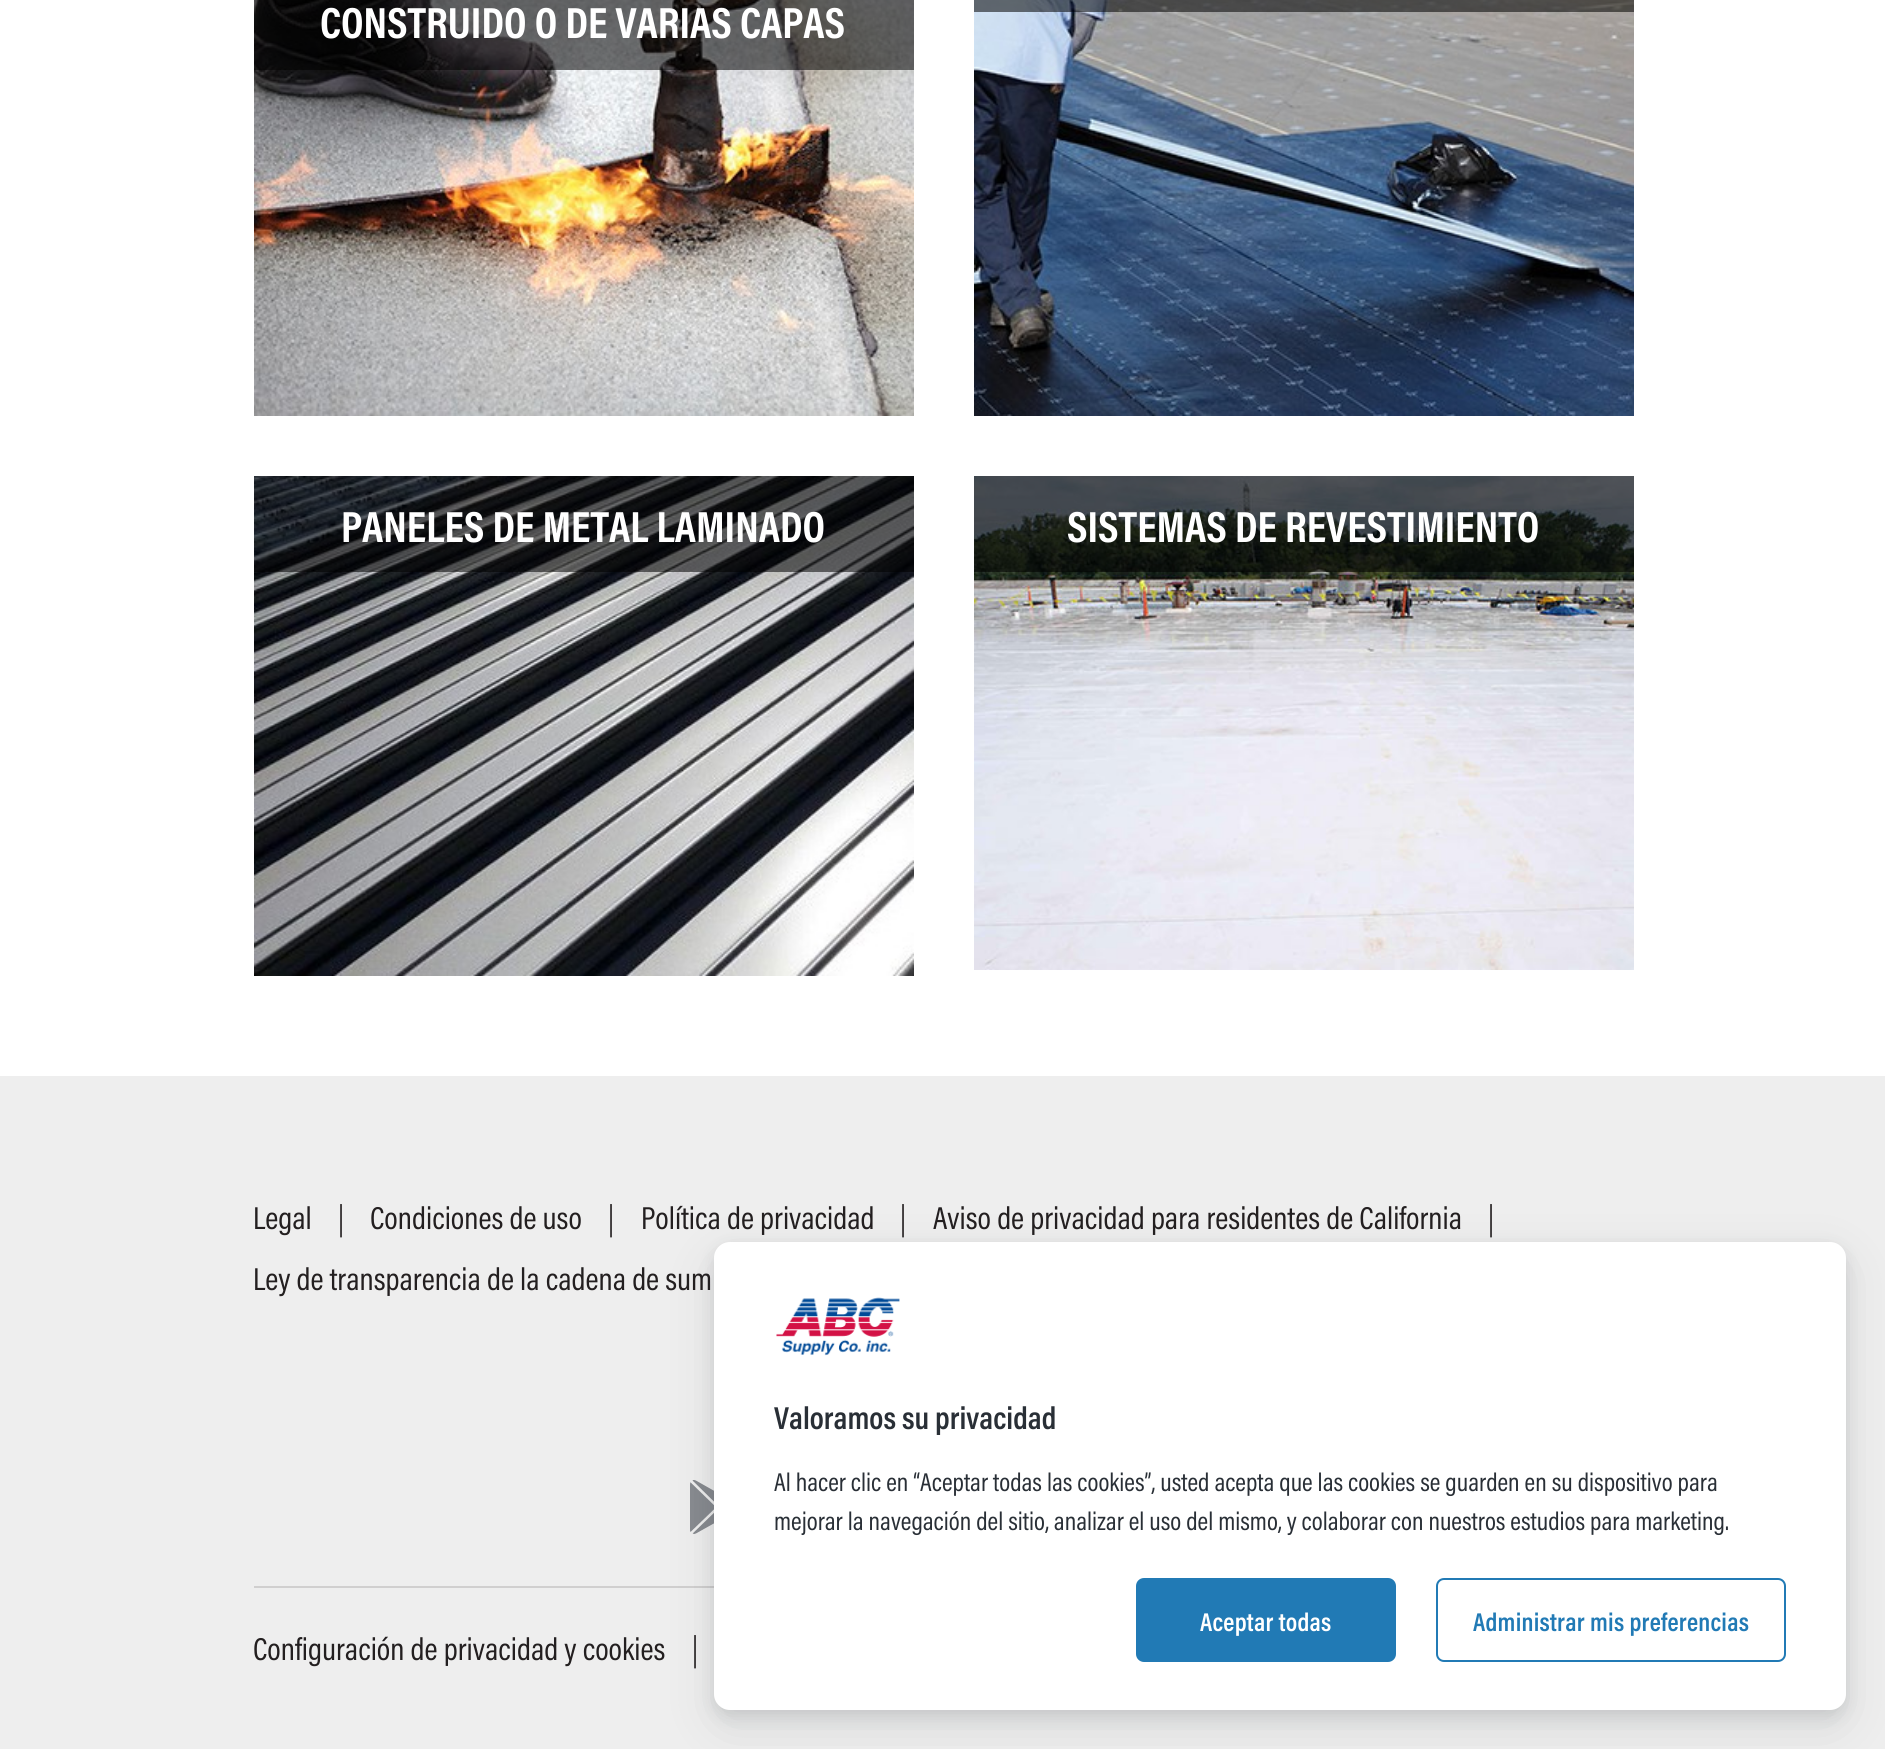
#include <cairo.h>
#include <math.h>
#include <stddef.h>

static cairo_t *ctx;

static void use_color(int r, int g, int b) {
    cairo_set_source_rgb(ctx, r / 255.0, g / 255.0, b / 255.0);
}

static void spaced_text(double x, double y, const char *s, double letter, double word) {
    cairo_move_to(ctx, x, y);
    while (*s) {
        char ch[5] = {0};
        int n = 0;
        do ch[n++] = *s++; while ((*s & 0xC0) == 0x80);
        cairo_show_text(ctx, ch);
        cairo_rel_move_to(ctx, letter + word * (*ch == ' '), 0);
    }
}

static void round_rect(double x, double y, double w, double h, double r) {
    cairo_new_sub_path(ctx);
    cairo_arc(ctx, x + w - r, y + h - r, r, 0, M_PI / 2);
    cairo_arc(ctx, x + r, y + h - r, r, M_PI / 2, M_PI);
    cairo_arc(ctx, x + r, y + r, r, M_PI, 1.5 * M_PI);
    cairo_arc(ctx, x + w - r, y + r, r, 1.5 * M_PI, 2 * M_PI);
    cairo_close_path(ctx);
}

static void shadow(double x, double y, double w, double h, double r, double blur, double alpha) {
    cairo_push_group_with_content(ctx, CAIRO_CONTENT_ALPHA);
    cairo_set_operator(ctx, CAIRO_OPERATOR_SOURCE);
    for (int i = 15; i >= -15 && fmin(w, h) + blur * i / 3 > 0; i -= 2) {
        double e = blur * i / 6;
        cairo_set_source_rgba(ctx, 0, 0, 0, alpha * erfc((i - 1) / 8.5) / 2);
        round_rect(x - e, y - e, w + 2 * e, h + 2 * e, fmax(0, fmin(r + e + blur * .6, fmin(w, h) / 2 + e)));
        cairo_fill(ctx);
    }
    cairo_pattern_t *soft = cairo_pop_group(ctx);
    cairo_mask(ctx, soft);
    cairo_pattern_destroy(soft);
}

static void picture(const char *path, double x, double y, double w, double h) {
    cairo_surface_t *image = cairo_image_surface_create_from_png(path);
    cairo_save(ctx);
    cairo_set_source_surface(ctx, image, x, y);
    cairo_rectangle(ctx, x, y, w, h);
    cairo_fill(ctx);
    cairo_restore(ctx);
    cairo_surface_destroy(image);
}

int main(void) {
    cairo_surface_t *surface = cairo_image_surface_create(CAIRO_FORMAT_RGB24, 1885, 1749);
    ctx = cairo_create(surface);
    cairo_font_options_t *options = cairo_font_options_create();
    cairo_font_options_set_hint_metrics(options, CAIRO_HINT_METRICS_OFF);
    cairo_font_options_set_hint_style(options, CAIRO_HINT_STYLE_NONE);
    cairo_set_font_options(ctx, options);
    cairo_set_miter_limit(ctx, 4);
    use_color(255, 255, 255);
    cairo_paint(ctx);
    picture("img1.png", 254, 0, 660, 416);
    cairo_set_source_rgba(ctx, 0, 0, 0, 0.55);
    cairo_rectangle(ctx, 254, 0, 660, 70);
    cairo_fill(ctx);
    cairo_select_font_face(ctx, "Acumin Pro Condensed", CAIRO_FONT_SLANT_NORMAL, CAIRO_FONT_WEIGHT_BOLD);
    cairo_set_font_size(ctx, 44);
    use_color(255, 255, 255);
    cairo_move_to(ctx, 320, 38);
    cairo_show_text(ctx, "CONSTRUIDO O DE VARIAS CAPAS");
    picture("img2.png", 974, 0, 660, 416);
    cairo_set_source_rgba(ctx, 0, 0, 0, 0.55);
    cairo_rectangle(ctx, 974, 0, 660, 12);
    cairo_fill(ctx);
    picture("img3.png", 254, 476, 660, 500);
    cairo_rectangle(ctx, 254, 476, 660, 96);
    cairo_fill(ctx);
    use_color(255, 255, 255);
    cairo_move_to(ctx, 341, 542);
    cairo_show_text(ctx, "PANELES DE METAL LAMINADO");
    picture("img4.png", 974, 476, 660, 494);
    cairo_set_source_rgba(ctx, 0, 0, 0, 0.55);
    cairo_rectangle(ctx, 974, 476, 660, 96);
    cairo_fill(ctx);
    use_color(255, 255, 255);
    cairo_move_to(ctx, 1067, 542);
    cairo_show_text(ctx, "SISTEMAS DE REVESTIMIENTO");
    use_color(238, 238, 238);
    cairo_rectangle(ctx, 0, 1076, 1885, 673);
    cairo_fill(ctx);
    cairo_select_font_face(ctx, "Acumin Pro Condensed", CAIRO_FONT_SLANT_NORMAL, CAIRO_FONT_WEIGHT_NORMAL);
    cairo_set_font_size(ctx, 32);
    use_color(35, 31, 32);
    cairo_move_to(ctx, 253, 1229);
    cairo_show_text(ctx, "Legal");
    cairo_select_font_face(ctx, "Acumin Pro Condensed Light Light", CAIRO_FONT_SLANT_NORMAL, CAIRO_FONT_WEIGHT_NORMAL);
    cairo_move_to(ctx, 338, 1229);
    cairo_show_text(ctx, "|");
    cairo_select_font_face(ctx, "Acumin Pro Condensed", CAIRO_FONT_SLANT_NORMAL, CAIRO_FONT_WEIGHT_NORMAL);
    cairo_move_to(ctx, 370, 1229);
    cairo_show_text(ctx, "Condiciones de uso");
    cairo_select_font_face(ctx, "Acumin Pro Condensed Light Light", CAIRO_FONT_SLANT_NORMAL, CAIRO_FONT_WEIGHT_NORMAL);
    cairo_move_to(ctx, 608, 1229);
    cairo_show_text(ctx, "|");
    cairo_select_font_face(ctx, "Acumin Pro Condensed", CAIRO_FONT_SLANT_NORMAL, CAIRO_FONT_WEIGHT_NORMAL);
    cairo_move_to(ctx, 641, 1229);
    cairo_show_text(ctx, "Política de privacidad");
    cairo_select_font_face(ctx, "Acumin Pro Condensed Light Light", CAIRO_FONT_SLANT_NORMAL, CAIRO_FONT_WEIGHT_NORMAL);
    cairo_move_to(ctx, 900, 1229);
    cairo_show_text(ctx, "|");
    cairo_select_font_face(ctx, "Acumin Pro Condensed", CAIRO_FONT_SLANT_NORMAL, CAIRO_FONT_WEIGHT_NORMAL);
    cairo_move_to(ctx, 933, 1229);
    cairo_show_text(ctx, "Aviso de privacidad para residentes de California");
    cairo_select_font_face(ctx, "Acumin Pro Condensed Light Light", CAIRO_FONT_SLANT_NORMAL, CAIRO_FONT_WEIGHT_NORMAL);
    cairo_move_to(ctx, 1488, 1229);
    cairo_show_text(ctx, "|");
    cairo_select_font_face(ctx, "Acumin Pro Condensed", CAIRO_FONT_SLANT_NORMAL, CAIRO_FONT_WEIGHT_NORMAL);
    cairo_move_to(ctx, 253, 1290);
    cairo_show_text(ctx, "Ley de transparencia de la cadena de sum");
    picture("img5.png", 690, 1480, 24, 54);
    use_color(208, 207, 207);
    cairo_rectangle(ctx, 254, 1586, 460, 2);
    cairo_fill(ctx);
    use_color(35, 31, 32);
    cairo_move_to(ctx, 253, 1660);
    cairo_show_text(ctx, "Configuración de privacidad y cookies");
    cairo_select_font_face(ctx, "Acumin Pro Condensed Light Light", CAIRO_FONT_SLANT_NORMAL, CAIRO_FONT_WEIGHT_NORMAL);
    cairo_move_to(ctx, 692, 1660);
    cairo_show_text(ctx, "|");
    use_color(41, 47, 54);
    shadow(714, 1248, 1132, 468, 16, 8, 0.13);
    shadow(714, 1258, 1132, 468, 16, 24, 0.12);
    use_color(255, 255, 255);
    round_rect(714, 1242, 1132, 468, 16);
    cairo_fill(ctx);
    picture("img6.png", 776, 1297, 124, 59);
    cairo_select_font_face(ctx, "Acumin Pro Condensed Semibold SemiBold", CAIRO_FONT_SLANT_NORMAL, CAIRO_FONT_WEIGHT_NORMAL);
    use_color(41, 47, 54);
    cairo_move_to(ctx, 774, 1429);
    cairo_show_text(ctx, "Valoramos su privacidad");
    cairo_select_font_face(ctx, "Acumin Pro Condensed", CAIRO_FONT_SLANT_NORMAL, CAIRO_FONT_WEIGHT_NORMAL);
    cairo_set_font_size(ctx, 26);
    cairo_move_to(ctx, 774, 1491);
    cairo_show_text(ctx, "Al hacer clic en “Aceptar todas las cookies”, usted acepta que las cookies se guarden en su dispositivo para");
    cairo_move_to(ctx, 774, 1530);
    cairo_show_text(ctx, "mejorar la navegación del sitio, analizar el uso del mismo, y colaborar con nuestros estudios para marketing.");
    use_color(33, 122, 181);
    round_rect(1137, 1579, 258, 82, 7);
    cairo_fill_preserve(ctx);
    cairo_stroke(ctx);
    cairo_select_font_face(ctx, "Acumin Pro Condensed Semibold SemiBold", CAIRO_FONT_SLANT_NORMAL, CAIRO_FONT_WEIGHT_NORMAL);
    use_color(255, 255, 255);
    spaced_text(1200, 1631, "Aceptar todas", 0.25, 0);
    round_rect(1437, 1579, 348, 82, 7);
    use_color(33, 122, 181);
    cairo_stroke(ctx);
    spaced_text(1473, 1631, "Administrar mis preferencias", 0.25, 0);
    cairo_surface_write_to_png(surface, "result.png");
    cairo_font_options_destroy(options);
    cairo_destroy(ctx);
    cairo_surface_destroy(surface);
    return 0;
}
